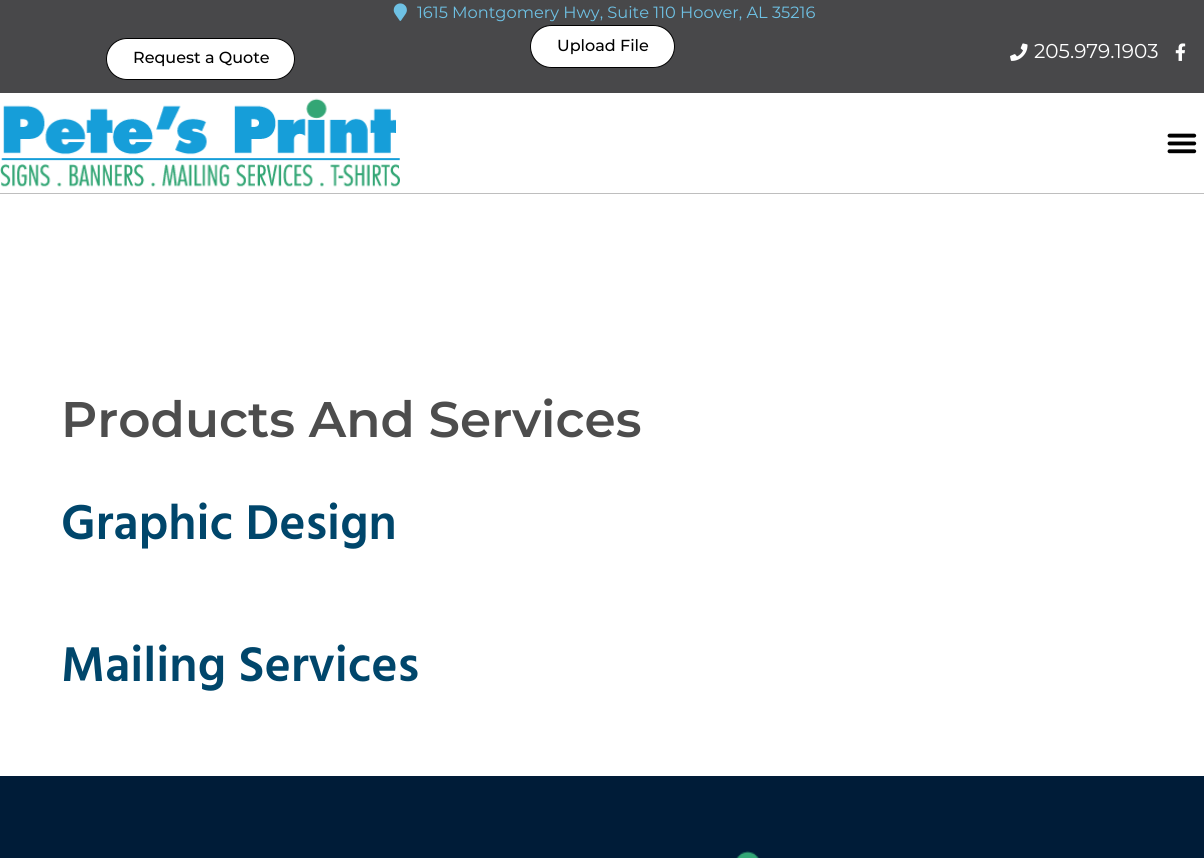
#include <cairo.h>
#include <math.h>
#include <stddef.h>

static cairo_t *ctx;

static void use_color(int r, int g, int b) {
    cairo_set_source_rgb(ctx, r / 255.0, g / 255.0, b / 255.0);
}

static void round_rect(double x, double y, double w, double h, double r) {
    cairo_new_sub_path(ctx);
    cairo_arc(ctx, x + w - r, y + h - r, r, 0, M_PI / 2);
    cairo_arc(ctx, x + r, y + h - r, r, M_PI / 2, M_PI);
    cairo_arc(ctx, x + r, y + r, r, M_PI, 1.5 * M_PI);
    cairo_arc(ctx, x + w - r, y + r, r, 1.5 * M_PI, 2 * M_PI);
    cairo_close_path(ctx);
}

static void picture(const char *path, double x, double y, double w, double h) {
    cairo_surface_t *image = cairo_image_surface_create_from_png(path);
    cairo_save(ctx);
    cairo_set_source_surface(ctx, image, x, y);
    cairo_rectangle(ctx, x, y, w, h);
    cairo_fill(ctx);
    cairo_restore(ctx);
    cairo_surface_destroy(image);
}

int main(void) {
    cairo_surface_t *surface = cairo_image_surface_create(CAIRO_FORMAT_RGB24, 1204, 858);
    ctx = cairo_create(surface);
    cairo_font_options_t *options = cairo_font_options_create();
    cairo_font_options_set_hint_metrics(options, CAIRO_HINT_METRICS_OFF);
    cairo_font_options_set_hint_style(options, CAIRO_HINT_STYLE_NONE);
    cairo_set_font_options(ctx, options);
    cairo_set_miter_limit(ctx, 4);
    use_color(255, 255, 255);
    cairo_paint(ctx);
    use_color(72, 72, 74);
    cairo_rectangle(ctx, 0, 0, 1204, 93);
    cairo_fill(ctx);
    picture("img1.png", 393, 3, 14, 18);
    cairo_select_font_face(ctx, "Montserrat", CAIRO_FONT_SLANT_NORMAL, CAIRO_FONT_WEIGHT_NORMAL);
    cairo_set_font_size(ctx, 16.25);
    use_color(110, 193, 228);
    cairo_move_to(ctx, 417, 18);
    cairo_show_text(ctx, "1615 Montgomery Hwy, Suite 110 Hoover, AL 35216");
    use_color(255, 255, 255);
    round_rect(106.5, 38.5, 188, 41, 20.5);
    cairo_fill_preserve(ctx);
    use_color(0, 0, 0);
    cairo_set_line_width(ctx, 1);
    cairo_stroke(ctx);
    cairo_select_font_face(ctx, "Montserrat Medium", CAIRO_FONT_SLANT_NORMAL, CAIRO_FONT_WEIGHT_NORMAL);
    cairo_set_font_size(ctx, 16);
    cairo_move_to(ctx, 133, 63);
    cairo_show_text(ctx, "Request a Quote");
    use_color(255, 255, 255);
    round_rect(530.5, 25.5, 144, 42, 21);
    cairo_fill_preserve(ctx);
    use_color(0, 0, 0);
    cairo_stroke(ctx);
    cairo_move_to(ctx, 557, 51);
    cairo_show_text(ctx, "Upload File");
    picture("img2.png", 1010, 43, 18, 18);
    cairo_select_font_face(ctx, "Montserrat", CAIRO_FONT_SLANT_NORMAL, CAIRO_FONT_WEIGHT_NORMAL);
    cairo_set_font_size(ctx, 20);
    use_color(255, 255, 255);
    cairo_move_to(ctx, 1034, 58);
    cairo_show_text(ctx, "205.979.1903");
    picture("img3.png", 1175, 43, 11, 18);
    use_color(190, 190, 190);
    cairo_rectangle(ctx, 0, 193, 1204, 1);
    cairo_fill(ctx);
    picture("img4.png", 0, 98, 400, 89);
    picture("img5.png", 1167, 133, 30, 21);
    cairo_select_font_face(ctx, "Montserrat SemiBold", CAIRO_FONT_SLANT_NORMAL, CAIRO_FONT_WEIGHT_NORMAL);
    cairo_set_font_size(ctx, 50);
    use_color(77, 77, 77);
    cairo_move_to(ctx, 61, 437);
    cairo_show_text(ctx, "Products And Services");
    cairo_select_font_face(ctx, "Hind SemiBold", CAIRO_FONT_SLANT_NORMAL, CAIRO_FONT_WEIGHT_NORMAL);
    use_color(0, 70, 107);
    cairo_move_to(ctx, 61, 539);
    cairo_show_text(ctx, "Graphic Design");
    cairo_move_to(ctx, 61, 681);
    cairo_show_text(ctx, "Mailing Services");
    use_color(0, 28, 56);
    cairo_rectangle(ctx, 0, 776, 1204, 82);
    cairo_fill(ctx);
    picture("img6.png", 736, 851, 23, 7);
    cairo_surface_write_to_png(surface, "result.png");
    cairo_font_options_destroy(options);
    cairo_destroy(ctx);
    cairo_surface_destroy(surface);
    return 0;
}
